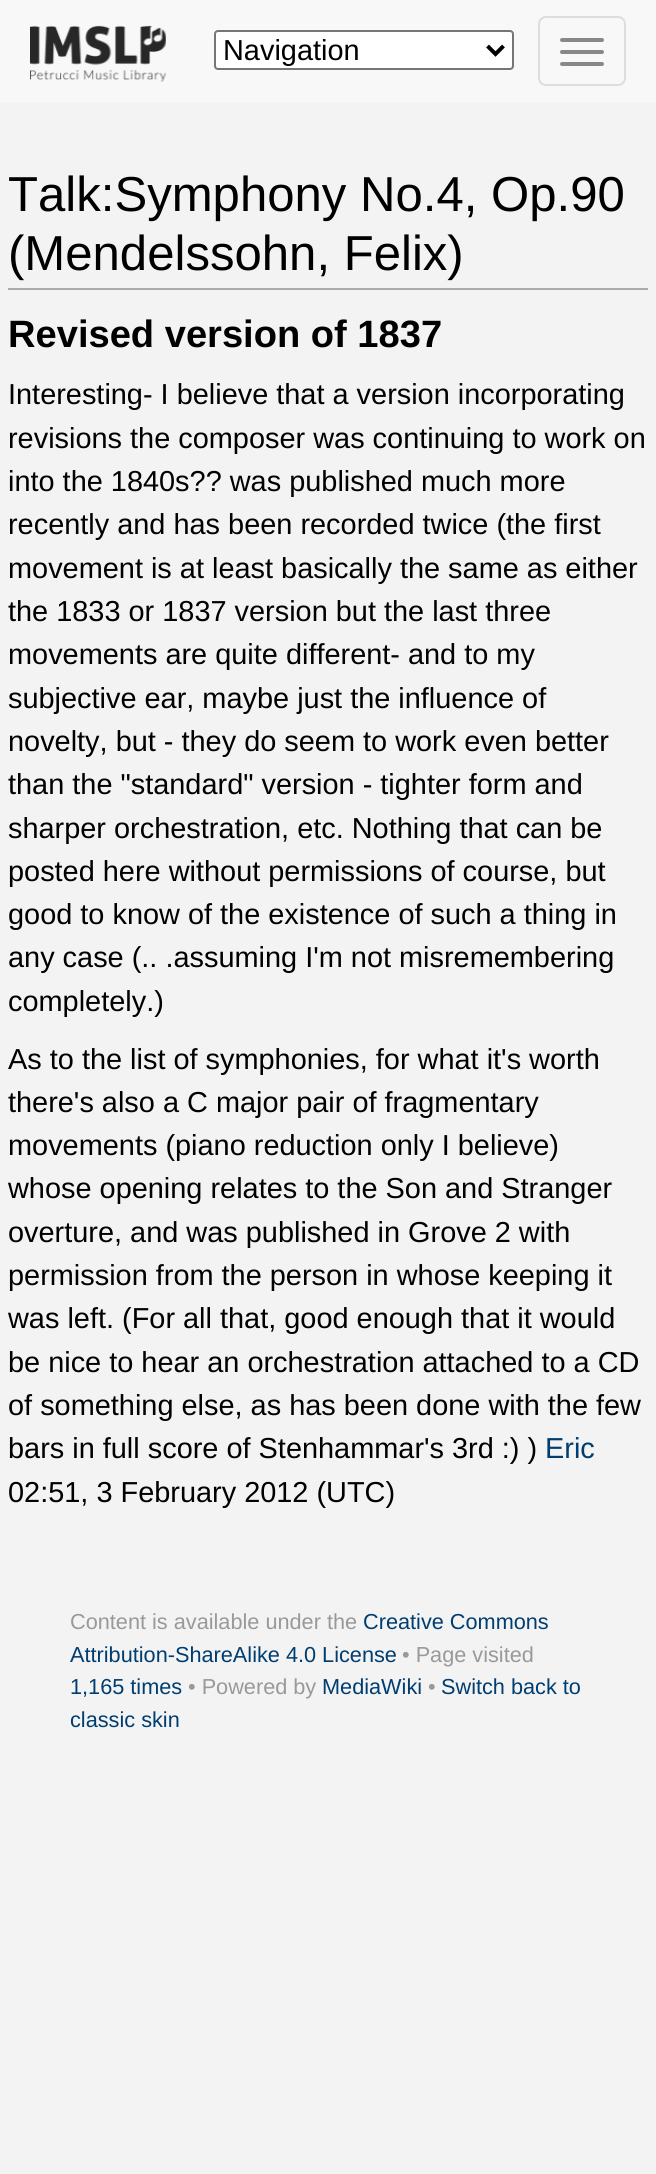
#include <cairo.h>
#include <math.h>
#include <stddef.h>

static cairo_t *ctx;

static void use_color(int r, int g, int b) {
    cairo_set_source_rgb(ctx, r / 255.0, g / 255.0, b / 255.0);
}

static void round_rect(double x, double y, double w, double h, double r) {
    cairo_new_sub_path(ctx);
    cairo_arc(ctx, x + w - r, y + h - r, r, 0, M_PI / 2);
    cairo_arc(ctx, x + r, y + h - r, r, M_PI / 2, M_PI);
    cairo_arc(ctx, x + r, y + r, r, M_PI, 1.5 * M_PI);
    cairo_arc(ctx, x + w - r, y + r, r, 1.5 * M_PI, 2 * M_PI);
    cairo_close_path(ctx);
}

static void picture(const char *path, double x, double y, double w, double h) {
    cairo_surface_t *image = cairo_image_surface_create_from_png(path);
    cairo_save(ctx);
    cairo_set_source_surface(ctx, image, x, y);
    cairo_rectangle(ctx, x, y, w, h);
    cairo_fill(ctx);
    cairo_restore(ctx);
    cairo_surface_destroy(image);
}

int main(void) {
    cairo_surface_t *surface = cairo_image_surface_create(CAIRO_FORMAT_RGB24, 656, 2174);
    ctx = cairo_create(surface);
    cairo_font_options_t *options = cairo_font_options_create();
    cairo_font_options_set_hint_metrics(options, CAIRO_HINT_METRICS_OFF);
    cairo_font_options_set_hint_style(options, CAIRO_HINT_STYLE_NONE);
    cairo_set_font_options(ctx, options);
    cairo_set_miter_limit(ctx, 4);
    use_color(243, 243, 243);
    cairo_paint(ctx);
    use_color(248, 248, 248);
    cairo_rectangle(ctx, 0, 0, 656, 102);
    cairo_fill(ctx);
    picture("img1.png", 30, 25, 136, 57);
    use_color(255, 255, 255);
    round_rect(215, 31, 298, 38, 3);
    cairo_fill_preserve(ctx);
    use_color(118, 118, 118);
    cairo_stroke(ctx);
    cairo_new_path(ctx);
    cairo_move_to(ctx, 487.5, 46);
    cairo_line_to(ctx, 495.5, 54);
    cairo_line_to(ctx, 503.5, 46);
    use_color(0, 0, 0);
    cairo_set_line_width(ctx, 4);
    cairo_stroke(ctx);
    cairo_select_font_face(ctx, "Liberation Sans", CAIRO_FONT_SLANT_NORMAL, CAIRO_FONT_WEIGHT_NORMAL);
    cairo_set_font_size(ctx, 28.9);
    cairo_move_to(ctx, 223, 60);
    cairo_show_text(ctx, "Navigation");
    round_rect(539, 17, 86, 68, 7);
    use_color(221, 221, 221);
    cairo_set_line_width(ctx, 2);
    cairo_stroke(ctx);
    use_color(136, 136, 136);
    round_rect(560, 38, 44, 4, 2);
    cairo_fill(ctx);
    round_rect(560, 50, 44, 4, 2);
    cairo_fill(ctx);
    round_rect(560, 62, 44, 4, 2);
    cairo_fill(ctx);
    use_color(170, 170, 170);
    cairo_rectangle(ctx, 8, 288, 640, 2);
    cairo_fill(ctx);
    cairo_set_font_size(ctx, 49.1);
    use_color(0, 0, 0);
    cairo_move_to(ctx, 8, 211);
    cairo_show_text(ctx, "Talk:Symphony No.4, Op.90");
    cairo_move_to(ctx, 8, 270);
    cairo_show_text(ctx, "(Mendelssohn, Felix)");
    cairo_select_font_face(ctx, "Liberation Sans", CAIRO_FONT_SLANT_NORMAL, CAIRO_FONT_WEIGHT_BOLD);
    cairo_set_font_size(ctx, 38.1);
    cairo_move_to(ctx, 8, 347);
    cairo_show_text(ctx, "Revised version of 1837");
    cairo_select_font_face(ctx, "Liberation Sans", CAIRO_FONT_SLANT_NORMAL, CAIRO_FONT_WEIGHT_NORMAL);
    cairo_set_font_size(ctx, 28.9);
    cairo_move_to(ctx, 8, 404);
    cairo_show_text(ctx, "Interesting- I believe that a version incorporating");
    cairo_move_to(ctx, 8, 448);
    cairo_show_text(ctx, "revisions the composer was continuing to work on");
    cairo_move_to(ctx, 8, 491);
    cairo_show_text(ctx, "into the 1840s?\077 was published much more");
    cairo_move_to(ctx, 8, 534);
    cairo_show_text(ctx, "recently and has been recorded twice (the first");
    cairo_move_to(ctx, 8, 578);
    cairo_show_text(ctx, "movement is at least basically the same as either");
    cairo_move_to(ctx, 8, 621);
    cairo_show_text(ctx, "the 1833 or 1837 version but the last three");
    cairo_move_to(ctx, 8, 664);
    cairo_show_text(ctx, "movements are quite different- and to my");
    cairo_move_to(ctx, 8, 708);
    cairo_show_text(ctx, "subjective ear, maybe just the influence of");
    cairo_move_to(ctx, 8, 751);
    cairo_show_text(ctx, "novelty, but - they do seem to work even better");
    cairo_move_to(ctx, 8, 794);
    cairo_show_text(ctx, "than the \"standard\" version - tighter form and");
    cairo_move_to(ctx, 8, 838);
    cairo_show_text(ctx, "sharper orchestration, etc. Nothing that can be");
    cairo_move_to(ctx, 8, 881);
    cairo_show_text(ctx, "posted here without permissions of course, but");
    cairo_move_to(ctx, 8, 924);
    cairo_show_text(ctx, "good to know of the existence of such a thing in");
    cairo_move_to(ctx, 8, 967);
    cairo_show_text(ctx, "any case (.. .assuming I'm not misremembering");
    cairo_move_to(ctx, 8, 1011);
    cairo_show_text(ctx, "completely.)");
    cairo_move_to(ctx, 8, 1069);
    cairo_show_text(ctx, "As to the list of symphonies, for what it's worth");
    cairo_move_to(ctx, 8, 1112);
    cairo_show_text(ctx, "there's also a C major pair of fragmentary");
    cairo_move_to(ctx, 8, 1155);
    cairo_show_text(ctx, "movements (piano reduction only I believe)");
    cairo_move_to(ctx, 8, 1198);
    cairo_show_text(ctx, "whose opening relates to the Son and Stranger");
    cairo_move_to(ctx, 8, 1242);
    cairo_show_text(ctx, "overture, and was published in Grove 2 with");
    cairo_move_to(ctx, 8, 1285);
    cairo_show_text(ctx, "permission from the person in whose keeping it");
    cairo_move_to(ctx, 8, 1328);
    cairo_show_text(ctx, "was left. (For all that, good enough that it would");
    cairo_move_to(ctx, 8, 1372);
    cairo_show_text(ctx, "be nice to hear an orchestration attached to a CD");
    cairo_move_to(ctx, 8, 1415);
    cairo_show_text(ctx, "of something else, as has been done with the few");
    cairo_move_to(ctx, 8, 1458);
    cairo_show_text(ctx, "bars in full score of Stenhammar's 3rd :) )");
    use_color(0, 61, 112);
    cairo_move_to(ctx, 545, 1458);
    cairo_show_text(ctx, "Eric");
    use_color(0, 0, 0);
    cairo_move_to(ctx, 8, 1502);
    cairo_show_text(ctx, "02:51, 3 February 2012 (UTC)");
    cairo_set_font_size(ctx, 21.7);
    use_color(153, 153, 153);
    cairo_move_to(ctx, 70, 1629);
    cairo_show_text(ctx, "Content is available under the");
    use_color(0, 61, 112);
    cairo_move_to(ctx, 363, 1629);
    cairo_show_text(ctx, "Creative Commons");
    cairo_move_to(ctx, 70, 1662);
    cairo_show_text(ctx, "Attribution-ShareAlike 4.0 License");
    use_color(153, 153, 153);
    cairo_move_to(ctx, 402, 1662);
    cairo_show_text(ctx, "• Page visited");
    use_color(0, 61, 112);
    cairo_move_to(ctx, 70, 1694);
    cairo_show_text(ctx, "1,165 times");
    use_color(153, 153, 153);
    cairo_move_to(ctx, 188, 1694);
    cairo_show_text(ctx, "• Powered by");
    use_color(0, 61, 112);
    cairo_move_to(ctx, 322, 1694);
    cairo_show_text(ctx, "MediaWiki");
    use_color(153, 153, 153);
    cairo_move_to(ctx, 428, 1694);
    cairo_show_text(ctx, "•");
    use_color(0, 61, 112);
    cairo_move_to(ctx, 441, 1694);
    cairo_show_text(ctx, "Switch back to");
    cairo_move_to(ctx, 70, 1727);
    cairo_show_text(ctx, "classic skin");
    cairo_surface_write_to_png(surface, "result.png");
    cairo_font_options_destroy(options);
    cairo_destroy(ctx);
    cairo_surface_destroy(surface);
    return 0;
}
